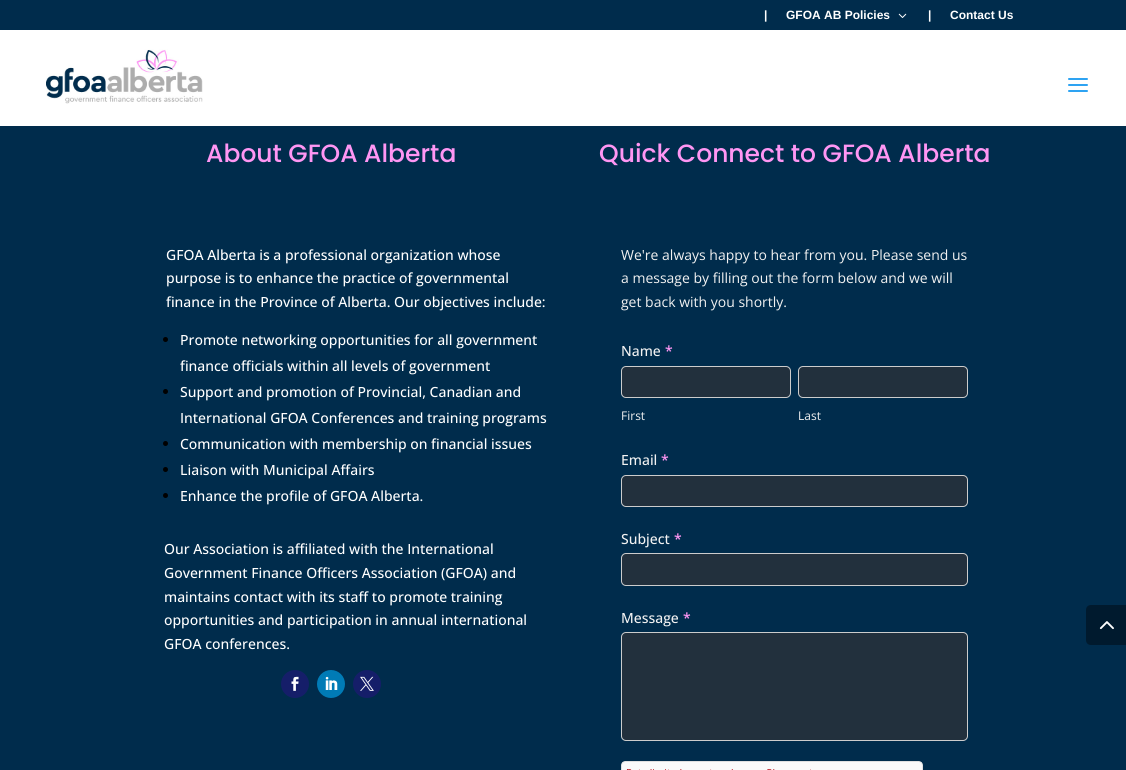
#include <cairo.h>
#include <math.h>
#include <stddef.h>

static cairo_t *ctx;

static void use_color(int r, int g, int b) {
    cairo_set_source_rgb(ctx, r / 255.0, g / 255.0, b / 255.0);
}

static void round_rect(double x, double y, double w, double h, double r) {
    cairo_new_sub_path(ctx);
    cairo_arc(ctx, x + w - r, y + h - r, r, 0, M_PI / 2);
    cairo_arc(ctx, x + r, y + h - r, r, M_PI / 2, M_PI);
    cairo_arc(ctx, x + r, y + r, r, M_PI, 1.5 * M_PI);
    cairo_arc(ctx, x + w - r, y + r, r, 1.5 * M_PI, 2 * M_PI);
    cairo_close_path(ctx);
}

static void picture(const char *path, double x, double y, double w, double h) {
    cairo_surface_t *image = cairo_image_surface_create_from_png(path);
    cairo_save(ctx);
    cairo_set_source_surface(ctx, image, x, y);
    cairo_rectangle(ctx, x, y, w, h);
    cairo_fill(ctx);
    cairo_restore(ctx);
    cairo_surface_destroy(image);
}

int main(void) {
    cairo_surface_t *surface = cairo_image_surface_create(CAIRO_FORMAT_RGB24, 1126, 770);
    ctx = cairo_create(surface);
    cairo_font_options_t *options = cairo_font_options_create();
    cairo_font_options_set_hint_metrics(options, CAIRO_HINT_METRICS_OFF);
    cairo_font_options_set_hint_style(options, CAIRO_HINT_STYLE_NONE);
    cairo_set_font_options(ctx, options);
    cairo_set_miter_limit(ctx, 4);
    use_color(0, 44, 76);
    cairo_paint(ctx);
    cairo_select_font_face(ctx, "Liberation Sans", CAIRO_FONT_SLANT_NORMAL, CAIRO_FONT_WEIGHT_BOLD);
    cairo_set_font_size(ctx, 12);
    use_color(255, 255, 255);
    cairo_move_to(ctx, 764, 19);
    cairo_show_text(ctx, "|");
    cairo_move_to(ctx, 786, 19);
    cairo_show_text(ctx, "GFOA AB Policies");
    picture("img1.png", 898, 13, 9, 5);
    cairo_move_to(ctx, 928, 19);
    cairo_show_text(ctx, "|");
    cairo_move_to(ctx, 950, 19);
    cairo_show_text(ctx, "Contact Us");
    cairo_rectangle(ctx, 0, 30, 1126, 96);
    cairo_fill(ctx);
    picture("img2.png", 46, 49, 157, 55);
    picture("img3.png", 1068, 78, 20, 14);
    cairo_select_font_face(ctx, "Poppins Medium", CAIRO_FONT_SLANT_NORMAL, CAIRO_FONT_WEIGHT_NORMAL);
    cairo_set_font_size(ctx, 25);
    use_color(255, 150, 243);
    cairo_move_to(ctx, 206, 162);
    cairo_show_text(ctx, "About GFOA Alberta");
    cairo_select_font_face(ctx, "Open Sans Medium", CAIRO_FONT_SLANT_NORMAL, CAIRO_FONT_WEIGHT_NORMAL);
    cairo_set_font_size(ctx, 14);
    use_color(255, 255, 255);
    cairo_move_to(ctx, 166, 260);
    cairo_show_text(ctx, "GFOA Alberta is a professional organization whose");
    cairo_move_to(ctx, 166, 283);
    cairo_show_text(ctx, "purpose is to enhance the practice of governmental");
    cairo_move_to(ctx, 166, 307);
    cairo_show_text(ctx, "finance in the Province of Alberta. Our objectives include:");
    use_color(0, 0, 0);
    cairo_new_path(ctx);
    cairo_arc(ctx, 165.5, 339.5, 2.5, 0, 2 * M_PI);
    cairo_fill(ctx);
    use_color(255, 255, 255);
    cairo_move_to(ctx, 180, 345);
    cairo_show_text(ctx, "Promote networking opportunities for all government");
    cairo_move_to(ctx, 180, 371);
    cairo_show_text(ctx, "finance officials within all levels of government");
    use_color(0, 0, 0);
    cairo_new_path(ctx);
    cairo_arc(ctx, 165.5, 391.5, 2.5, 0, 2 * M_PI);
    cairo_fill(ctx);
    use_color(255, 255, 255);
    cairo_move_to(ctx, 180, 397);
    cairo_show_text(ctx, "Support and promotion of Provincial, Canadian and");
    cairo_move_to(ctx, 180, 423);
    cairo_show_text(ctx, "International GFOA Conferences and training programs");
    use_color(0, 0, 0);
    cairo_new_path(ctx);
    cairo_arc(ctx, 165.5, 443.5, 2.5, 0, 2 * M_PI);
    cairo_fill(ctx);
    use_color(255, 255, 255);
    cairo_move_to(ctx, 180, 449);
    cairo_show_text(ctx, "Communication with membership on financial issues");
    use_color(0, 0, 0);
    cairo_new_path(ctx);
    cairo_arc(ctx, 165.5, 469.5, 2.5, 0, 2 * M_PI);
    cairo_fill(ctx);
    use_color(255, 255, 255);
    cairo_move_to(ctx, 180, 475);
    cairo_show_text(ctx, "Liaison with Municipal Affairs");
    use_color(0, 0, 0);
    cairo_new_path(ctx);
    cairo_arc(ctx, 165.5, 495.5, 2.5, 0, 2 * M_PI);
    cairo_fill(ctx);
    use_color(255, 255, 255);
    cairo_move_to(ctx, 180, 501);
    cairo_show_text(ctx, "Enhance the profile of GFOA Alberta.");
    cairo_move_to(ctx, 164, 554);
    cairo_show_text(ctx, "Our Association is affiliated with the International");
    cairo_move_to(ctx, 164, 578);
    cairo_show_text(ctx, "Government Finance Officers Association (GFOA) and");
    cairo_move_to(ctx, 164, 602);
    cairo_show_text(ctx, "maintains contact with its staff to promote training");
    cairo_move_to(ctx, 164, 625);
    cairo_show_text(ctx, "opportunities and participation in annual international");
    cairo_move_to(ctx, 164, 649);
    cairo_show_text(ctx, "GFOA conferences.");
    use_color(21, 30, 105);
    cairo_new_path(ctx);
    cairo_arc(ctx, 295, 684, 14, 0, 2 * M_PI);
    cairo_fill(ctx);
    picture("img4.png", 291, 676, 8, 15);
    use_color(0, 123, 182);
    cairo_arc(ctx, 331, 684, 14, 0, 2 * M_PI);
    cairo_fill(ctx);
    picture("img5.png", 325, 676, 13, 14);
    use_color(21, 30, 105);
    cairo_arc(ctx, 367, 684, 14, 0, 2 * M_PI);
    cairo_fill(ctx);
    picture("img6.png", 360, 676, 14, 15);
    cairo_select_font_face(ctx, "Poppins Medium", CAIRO_FONT_SLANT_NORMAL, CAIRO_FONT_WEIGHT_NORMAL);
    cairo_set_font_size(ctx, 25);
    use_color(255, 150, 243);
    cairo_move_to(ctx, 599, 162);
    cairo_show_text(ctx, "Quick Connect to GFOA Alberta");
    cairo_select_font_face(ctx, "Open Sans", CAIRO_FONT_SLANT_NORMAL, CAIRO_FONT_WEIGHT_NORMAL);
    cairo_set_font_size(ctx, 14);
    use_color(242, 242, 242);
    cairo_move_to(ctx, 621, 260);
    cairo_show_text(ctx, "We're always happy to hear from you. Please send us");
    cairo_move_to(ctx, 621, 283);
    cairo_show_text(ctx, "a message by filling out the form below and we will");
    cairo_move_to(ctx, 621, 307);
    cairo_show_text(ctx, "get back with you shortly.");
    cairo_select_font_face(ctx, "Open Sans Medium", CAIRO_FONT_SLANT_NORMAL, CAIRO_FONT_WEIGHT_NORMAL);
    cairo_move_to(ctx, 621, 356);
    cairo_show_text(ctx, "Name");
    cairo_select_font_face(ctx, "Open Sans SemiBold", CAIRO_FONT_SLANT_NORMAL, CAIRO_FONT_WEIGHT_NORMAL);
    use_color(255, 150, 243);
    cairo_move_to(ctx, 665, 356);
    cairo_show_text(ctx, "*");
    use_color(34, 48, 61);
    round_rect(621.5, 366.5, 169, 31, 4.5);
    cairo_fill_preserve(ctx);
    use_color(204, 204, 204);
    cairo_set_line_width(ctx, 1);
    cairo_stroke(ctx);
    cairo_select_font_face(ctx, "Open Sans", CAIRO_FONT_SLANT_NORMAL, CAIRO_FONT_WEIGHT_NORMAL);
    cairo_set_font_size(ctx, 12);
    use_color(242, 242, 242);
    cairo_move_to(ctx, 621, 420);
    cairo_show_text(ctx, "First");
    use_color(34, 48, 61);
    round_rect(798.5, 366.5, 169, 31, 4.5);
    cairo_fill_preserve(ctx);
    use_color(204, 204, 204);
    cairo_stroke(ctx);
    use_color(242, 242, 242);
    cairo_move_to(ctx, 798, 420);
    cairo_show_text(ctx, "Last");
    cairo_select_font_face(ctx, "Open Sans Medium", CAIRO_FONT_SLANT_NORMAL, CAIRO_FONT_WEIGHT_NORMAL);
    cairo_set_font_size(ctx, 14);
    cairo_move_to(ctx, 621, 465);
    cairo_show_text(ctx, "Email");
    cairo_select_font_face(ctx, "Open Sans SemiBold", CAIRO_FONT_SLANT_NORMAL, CAIRO_FONT_WEIGHT_NORMAL);
    use_color(255, 150, 243);
    cairo_move_to(ctx, 661, 465);
    cairo_show_text(ctx, "*");
    use_color(34, 48, 61);
    round_rect(621.5, 475.5, 346, 31, 4.5);
    cairo_fill_preserve(ctx);
    use_color(204, 204, 204);
    cairo_stroke(ctx);
    cairo_select_font_face(ctx, "Open Sans Medium", CAIRO_FONT_SLANT_NORMAL, CAIRO_FONT_WEIGHT_NORMAL);
    use_color(242, 242, 242);
    cairo_move_to(ctx, 621, 544);
    cairo_show_text(ctx, "Subject");
    cairo_select_font_face(ctx, "Open Sans SemiBold", CAIRO_FONT_SLANT_NORMAL, CAIRO_FONT_WEIGHT_NORMAL);
    use_color(255, 150, 243);
    cairo_move_to(ctx, 674, 544);
    cairo_show_text(ctx, "*");
    use_color(34, 48, 61);
    round_rect(621.5, 553.5, 346, 32, 4.5);
    cairo_fill_preserve(ctx);
    use_color(204, 204, 204);
    cairo_stroke(ctx);
    cairo_select_font_face(ctx, "Open Sans Medium", CAIRO_FONT_SLANT_NORMAL, CAIRO_FONT_WEIGHT_NORMAL);
    use_color(242, 242, 242);
    cairo_move_to(ctx, 621, 623);
    cairo_show_text(ctx, "Message");
    cairo_select_font_face(ctx, "Open Sans SemiBold", CAIRO_FONT_SLANT_NORMAL, CAIRO_FONT_WEIGHT_NORMAL);
    use_color(255, 150, 243);
    cairo_move_to(ctx, 683, 623);
    cairo_show_text(ctx, "*");
    use_color(34, 48, 61);
    round_rect(621.5, 632.5, 346, 108, 4.5);
    cairo_fill_preserve(ctx);
    use_color(204, 204, 204);
    cairo_stroke(ctx);
    picture("img7.png", 621, 761, 302, 9);
    use_color(0, 26, 46);
    cairo_new_path(ctx);
    cairo_move_to(ctx, 1091, 605);
    cairo_line_to(ctx, 1126, 605);
    cairo_line_to(ctx, 1126, 645);
    cairo_line_to(ctx, 1091, 645);
    cairo_curve_to(ctx, 1088, 645, 1086, 643, 1086, 640);
    cairo_line_to(ctx, 1086, 610);
    cairo_curve_to(ctx, 1086, 607, 1088, 605, 1091, 605);
    cairo_close_path(ctx);
    cairo_fill(ctx);
    picture("img8.png", 1099, 621, 15, 9);
    cairo_surface_write_to_png(surface, "result.png");
    cairo_font_options_destroy(options);
    cairo_destroy(ctx);
    cairo_surface_destroy(surface);
    return 0;
}
